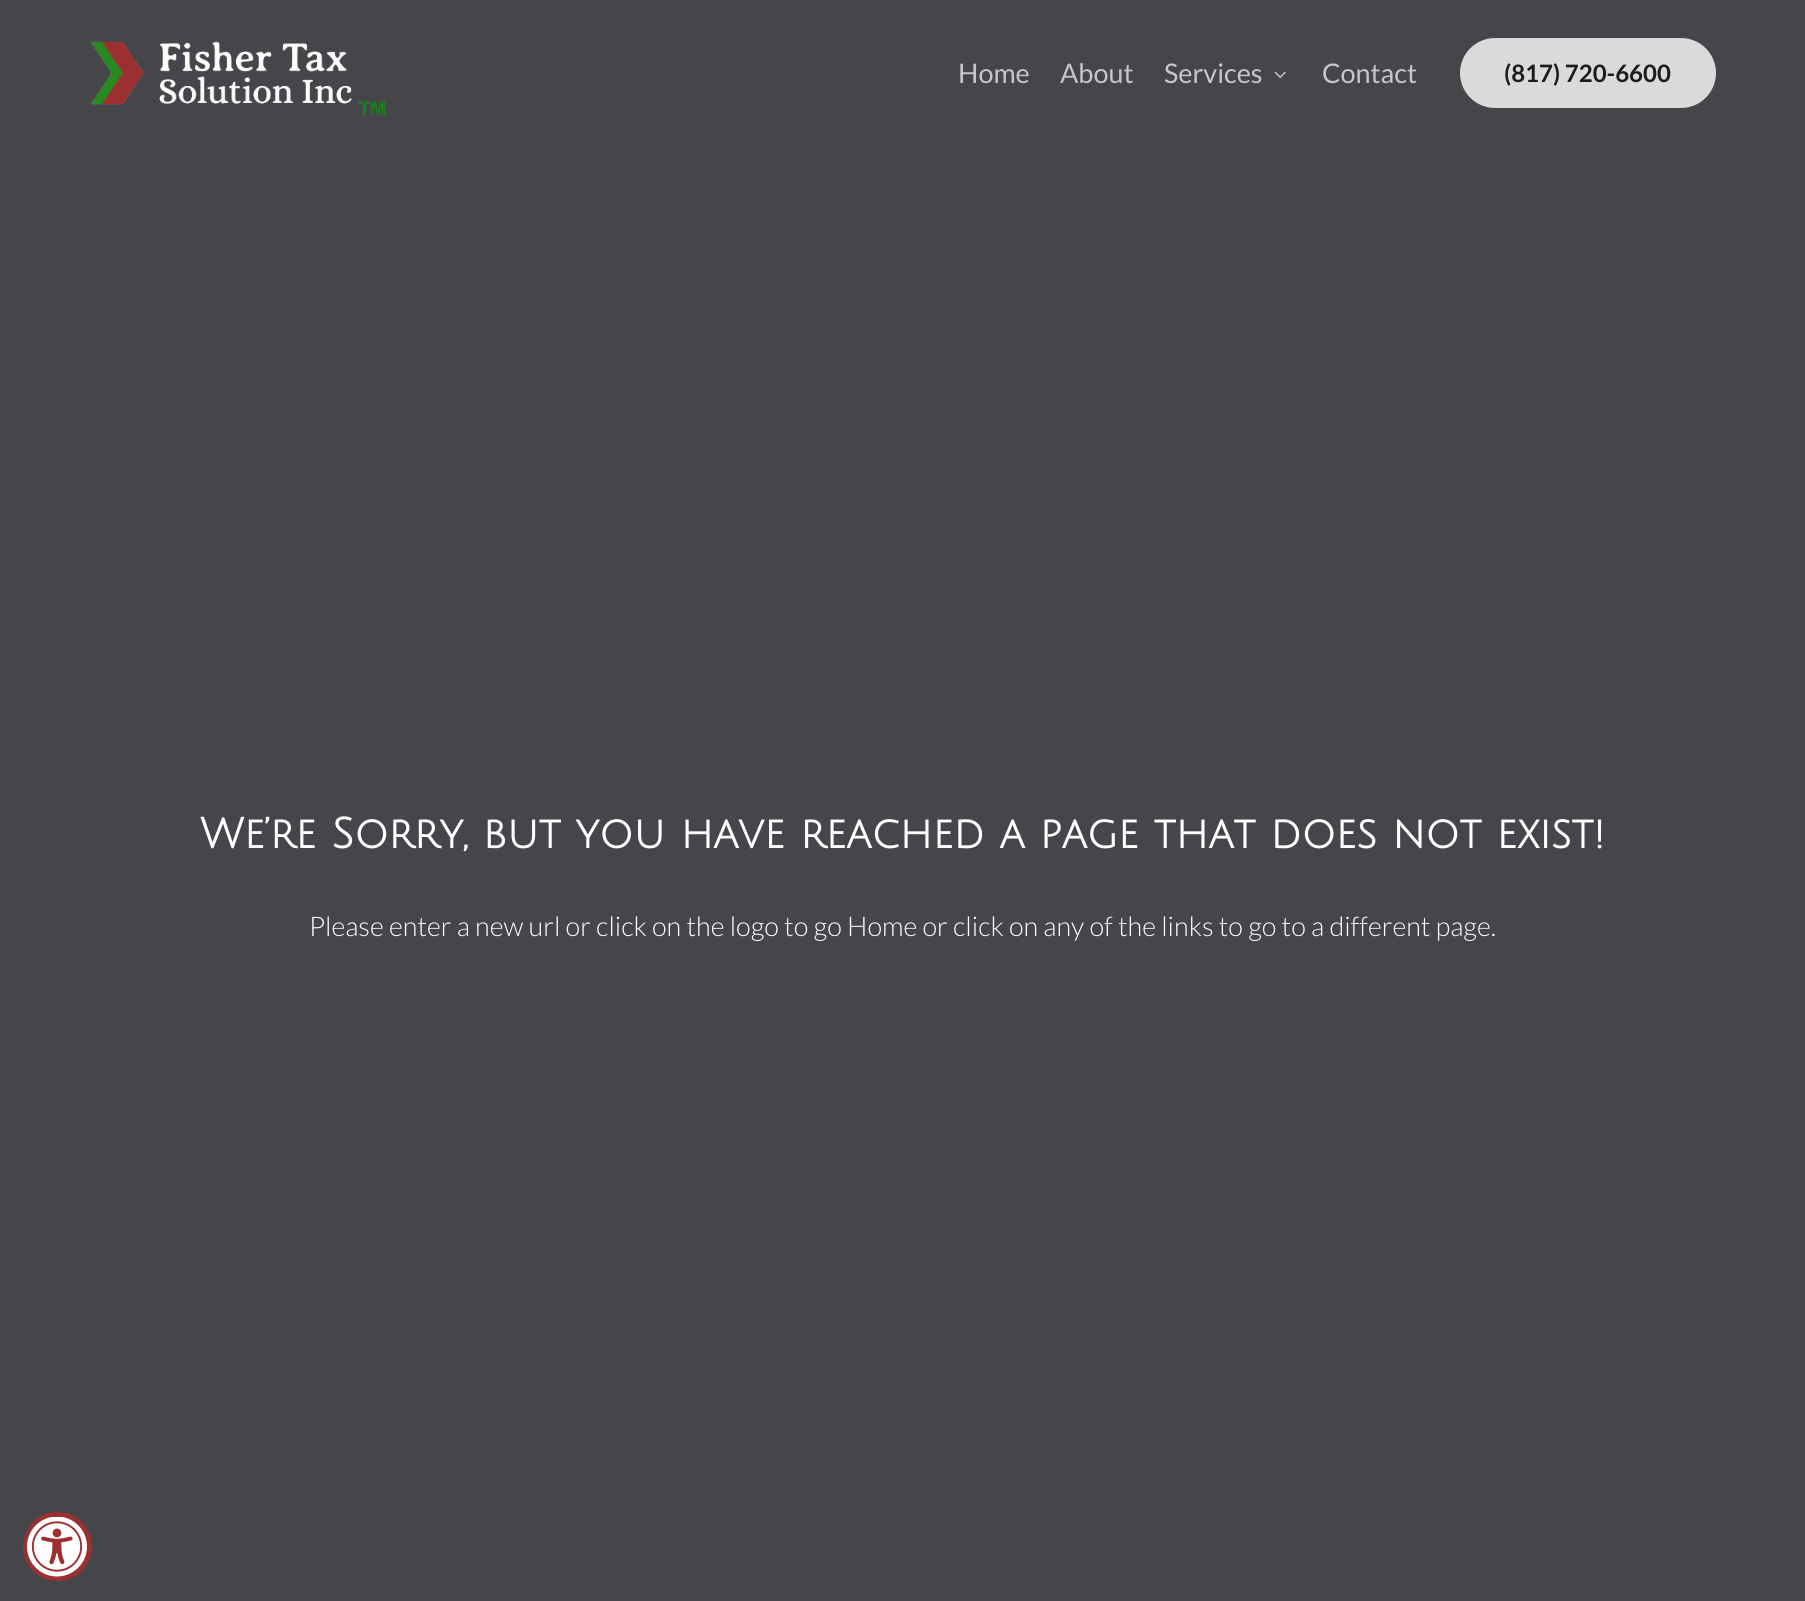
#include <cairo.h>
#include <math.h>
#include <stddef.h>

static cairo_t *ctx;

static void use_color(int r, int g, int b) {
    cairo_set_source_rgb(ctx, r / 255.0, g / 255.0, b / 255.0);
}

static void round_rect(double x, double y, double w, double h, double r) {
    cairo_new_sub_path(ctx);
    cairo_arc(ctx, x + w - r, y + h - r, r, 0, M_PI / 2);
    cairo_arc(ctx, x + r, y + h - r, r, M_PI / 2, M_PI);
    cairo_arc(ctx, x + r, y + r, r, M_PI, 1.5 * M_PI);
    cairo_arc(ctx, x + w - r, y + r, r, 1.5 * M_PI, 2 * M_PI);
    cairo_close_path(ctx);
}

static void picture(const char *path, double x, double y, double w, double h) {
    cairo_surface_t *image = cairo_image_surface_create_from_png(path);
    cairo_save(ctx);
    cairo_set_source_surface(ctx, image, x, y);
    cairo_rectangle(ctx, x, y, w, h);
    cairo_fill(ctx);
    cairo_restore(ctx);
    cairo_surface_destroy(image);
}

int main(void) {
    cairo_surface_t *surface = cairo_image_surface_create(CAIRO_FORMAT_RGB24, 1805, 1601);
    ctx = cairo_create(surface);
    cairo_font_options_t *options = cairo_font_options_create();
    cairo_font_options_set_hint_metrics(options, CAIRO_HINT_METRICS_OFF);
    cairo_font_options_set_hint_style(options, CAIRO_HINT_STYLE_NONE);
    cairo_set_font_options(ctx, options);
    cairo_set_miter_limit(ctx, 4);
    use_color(69, 69, 74);
    cairo_paint(ctx);
    picture("img1.png", 90, 41, 296, 75);
    cairo_select_font_face(ctx, "Lato", CAIRO_FONT_SLANT_NORMAL, CAIRO_FONT_WEIGHT_NORMAL);
    cairo_set_font_size(ctx, 27);
    use_color(199, 199, 201);
    cairo_move_to(ctx, 958, 83);
    cairo_show_text(ctx, "Home");
    cairo_move_to(ctx, 1060, 83);
    cairo_show_text(ctx, "About");
    cairo_move_to(ctx, 1164, 83);
    cairo_show_text(ctx, "Services");
    picture("img2.png", 1274, 71, 12, 7);
    cairo_move_to(ctx, 1322, 83);
    cairo_show_text(ctx, "Contact");
    use_color(218, 218, 219);
    round_rect(1460, 38, 256, 70, 35);
    cairo_fill(ctx);
    cairo_select_font_face(ctx, "Lato", CAIRO_FONT_SLANT_NORMAL, CAIRO_FONT_WEIGHT_BOLD);
    cairo_set_font_size(ctx, 24);
    use_color(27, 27, 27);
    cairo_move_to(ctx, 1504, 82);
    cairo_show_text(ctx, "(817) 720-6600");
    cairo_select_font_face(ctx, "Julius Sans One", CAIRO_FONT_SLANT_NORMAL, CAIRO_FONT_WEIGHT_BOLD);
    cairo_set_font_size(ctx, 42);
    use_color(255, 255, 255);
    cairo_move_to(ctx, 200, 848);
    cairo_show_text(ctx, "We’re Sorry, but you have reached a page that does not exist!");
    cairo_select_font_face(ctx, "Lato Light", CAIRO_FONT_SLANT_NORMAL, CAIRO_FONT_WEIGHT_NORMAL);
    cairo_set_font_size(ctx, 27);
    cairo_move_to(ctx, 309, 936);
    cairo_show_text(ctx, "Please enter a new url or click on the logo to go Home or click on any of the links to go to a different page.");
    use_color(156, 48, 48);
    cairo_new_path(ctx);
    cairo_arc(ctx, 57.5, 1546.5, 34.5, 0, 2 * M_PI);
    cairo_fill(ctx);
    picture("img3.png", 27, 1517, 60, 60);
    cairo_surface_write_to_png(surface, "result.png");
    cairo_font_options_destroy(options);
    cairo_destroy(ctx);
    cairo_surface_destroy(surface);
    return 0;
}
